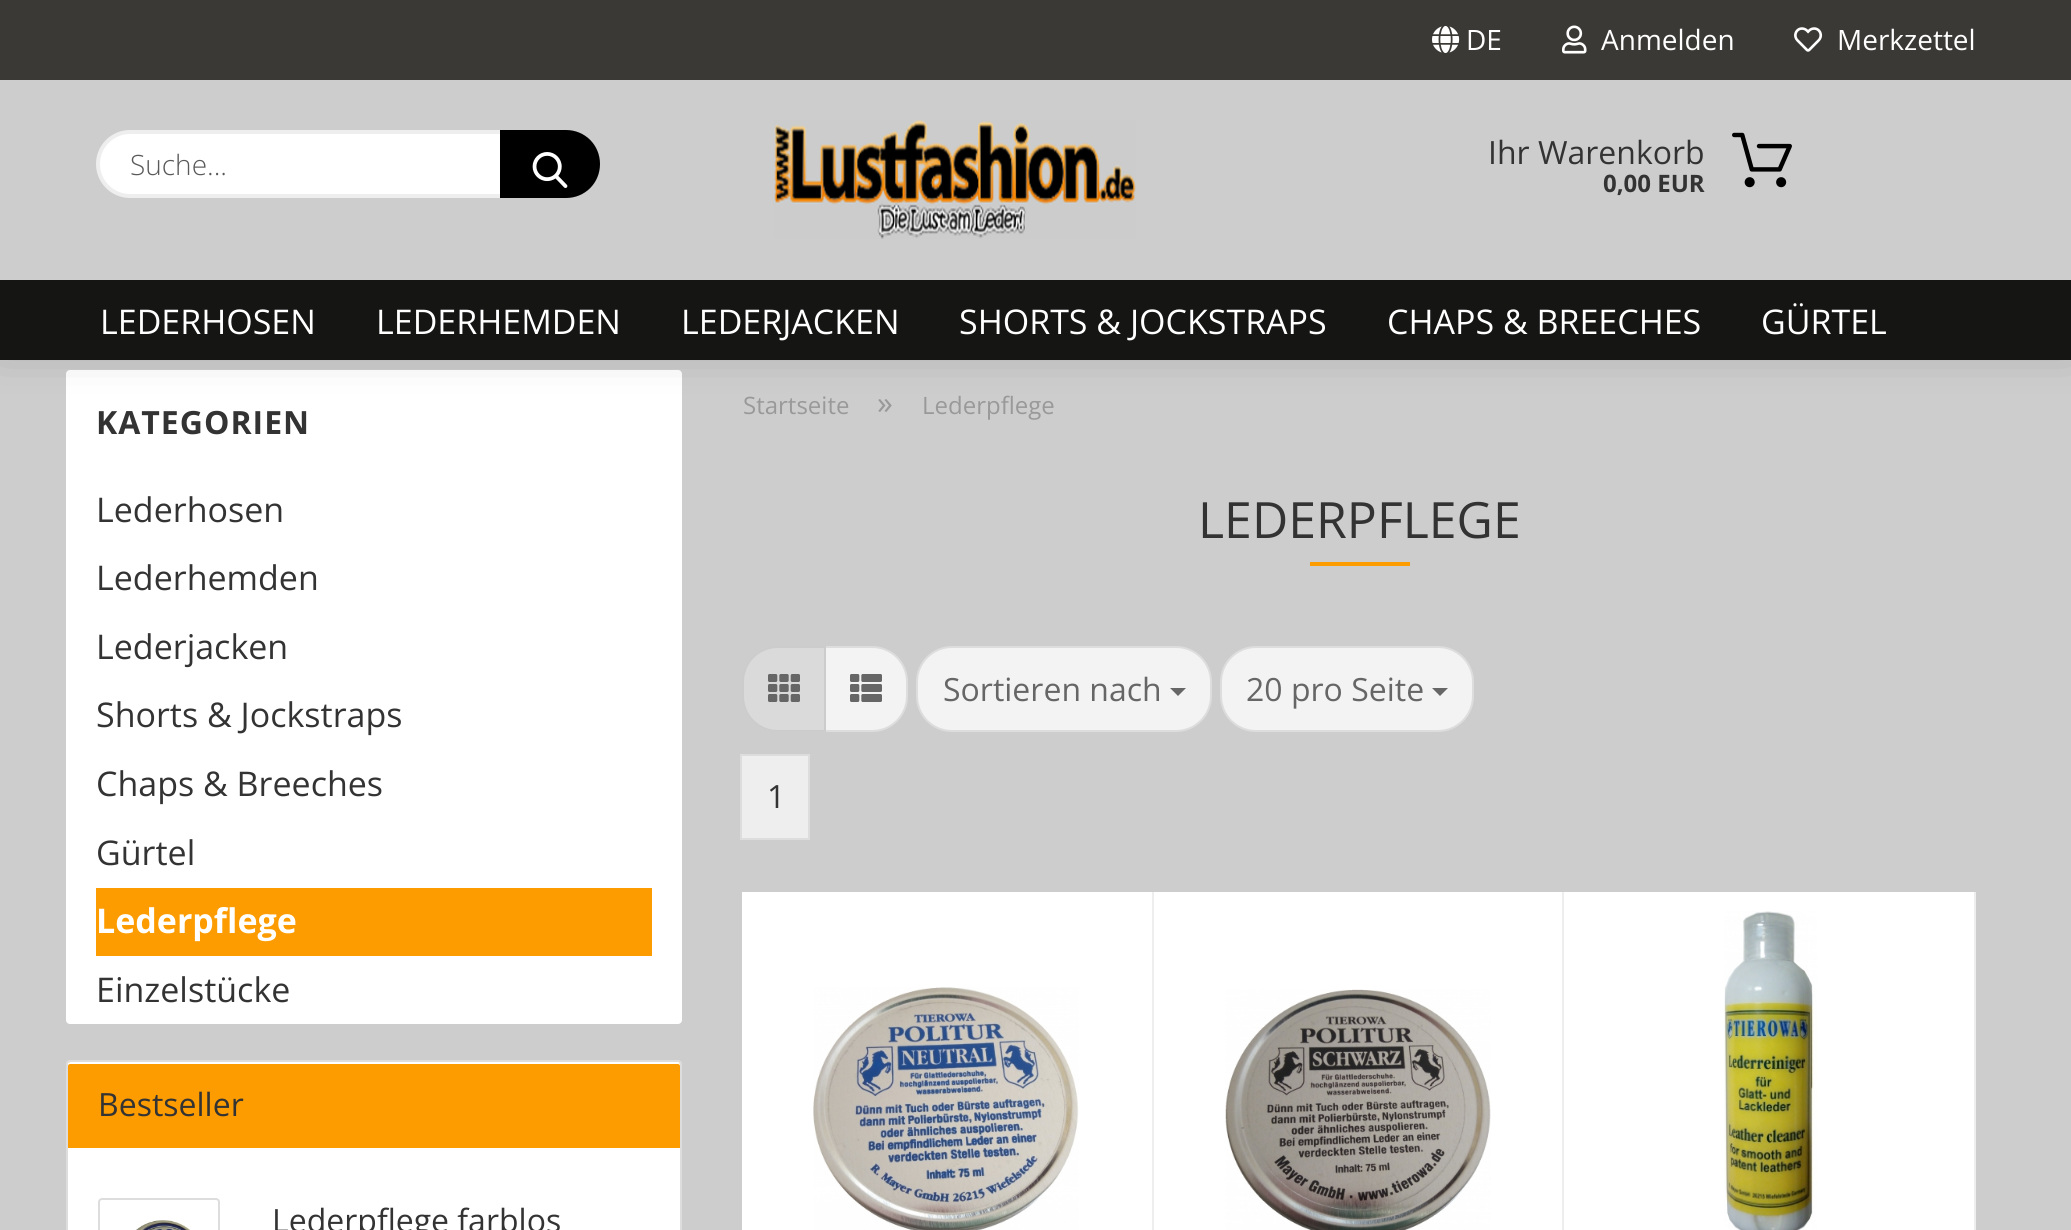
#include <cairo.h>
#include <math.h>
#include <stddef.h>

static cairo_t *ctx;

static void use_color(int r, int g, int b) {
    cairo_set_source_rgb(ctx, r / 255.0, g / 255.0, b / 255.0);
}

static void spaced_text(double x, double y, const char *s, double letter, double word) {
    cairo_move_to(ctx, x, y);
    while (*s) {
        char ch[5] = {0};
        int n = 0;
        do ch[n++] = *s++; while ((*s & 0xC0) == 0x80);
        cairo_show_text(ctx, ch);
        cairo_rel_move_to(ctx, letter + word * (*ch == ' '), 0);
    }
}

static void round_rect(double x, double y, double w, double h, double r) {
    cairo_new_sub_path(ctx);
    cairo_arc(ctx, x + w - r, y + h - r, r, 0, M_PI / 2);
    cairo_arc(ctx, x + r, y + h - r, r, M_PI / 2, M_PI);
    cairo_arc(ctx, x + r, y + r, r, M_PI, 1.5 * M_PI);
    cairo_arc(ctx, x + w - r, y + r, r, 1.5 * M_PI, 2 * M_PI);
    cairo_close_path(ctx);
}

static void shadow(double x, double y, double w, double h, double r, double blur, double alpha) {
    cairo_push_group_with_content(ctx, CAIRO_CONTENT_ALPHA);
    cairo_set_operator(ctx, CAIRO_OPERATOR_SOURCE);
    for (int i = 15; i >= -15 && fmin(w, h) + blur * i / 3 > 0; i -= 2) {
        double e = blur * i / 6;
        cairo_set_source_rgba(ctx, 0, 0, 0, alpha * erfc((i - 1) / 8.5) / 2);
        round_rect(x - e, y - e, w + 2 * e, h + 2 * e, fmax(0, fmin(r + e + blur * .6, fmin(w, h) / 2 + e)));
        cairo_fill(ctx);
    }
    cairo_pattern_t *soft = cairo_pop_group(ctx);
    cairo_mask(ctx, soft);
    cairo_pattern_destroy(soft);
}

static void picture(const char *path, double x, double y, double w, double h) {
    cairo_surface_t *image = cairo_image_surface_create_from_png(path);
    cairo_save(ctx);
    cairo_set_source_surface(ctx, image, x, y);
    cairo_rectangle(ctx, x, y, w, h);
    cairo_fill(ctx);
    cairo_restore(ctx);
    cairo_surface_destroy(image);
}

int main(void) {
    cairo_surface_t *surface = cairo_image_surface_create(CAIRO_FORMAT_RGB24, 2071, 1230);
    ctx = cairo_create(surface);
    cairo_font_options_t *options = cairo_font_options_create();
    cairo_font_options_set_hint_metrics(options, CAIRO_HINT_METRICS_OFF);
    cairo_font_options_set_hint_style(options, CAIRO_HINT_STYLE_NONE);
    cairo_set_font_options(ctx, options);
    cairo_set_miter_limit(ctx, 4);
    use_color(205, 205, 205);
    cairo_paint(ctx);
    use_color(255, 255, 255);
    round_rect(66, 370, 616, 654, 4);
    cairo_fill(ctx);
    use_color(0, 0, 0);
    shadow(0, 0, 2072, 340, 0, 25, 0.3);
    use_color(205, 205, 205);
    cairo_rectangle(ctx, 0, 80, 2071, 200);
    cairo_fill(ctx);
    use_color(59, 57, 53);
    cairo_rectangle(ctx, 0, 0, 2071, 80);
    cairo_fill(ctx);
    picture("img1.png", 1432, 26, 28, 27);
    cairo_select_font_face(ctx, "Open Sans", CAIRO_FONT_SLANT_NORMAL, CAIRO_FONT_WEIGHT_NORMAL);
    cairo_set_font_size(ctx, 28);
    use_color(255, 255, 255);
    cairo_move_to(ctx, 1466, 50);
    cairo_show_text(ctx, "DE");
    picture("img2.png", 1562, 25, 25, 29);
    cairo_move_to(ctx, 1601, 50);
    cairo_show_text(ctx, "Anmelden");
    picture("img3.png", 1794, 27, 29, 25);
    cairo_move_to(ctx, 1837, 50);
    cairo_show_text(ctx, "Merkzettel");
    round_rect(98, 132, 496, 64, 32);
    cairo_fill_preserve(ctx);
    use_color(238, 238, 238);
    cairo_set_line_width(ctx, 4);
    cairo_stroke(ctx);
    cairo_select_font_face(ctx, "Open Sans Light", CAIRO_FONT_SLANT_NORMAL, CAIRO_FONT_WEIGHT_NORMAL);
    use_color(89, 89, 89);
    cairo_move_to(ctx, 130, 175);
    cairo_show_text(ctx, "Suche...");
    use_color(0, 0, 0);
    cairo_new_path(ctx);
    cairo_move_to(ctx, 500, 130);
    cairo_line_to(ctx, 566, 130);
    cairo_curve_to(ctx, 585, 130, 600, 145, 600, 164);
    cairo_curve_to(ctx, 600, 183, 585, 198, 566, 198);
    cairo_line_to(ctx, 500, 198);
    cairo_close_path(ctx);
    cairo_fill(ctx);
    picture("img4.png", 532, 152, 36, 36);
    picture("img5.png", 773, 120, 363, 119);
    cairo_select_font_face(ctx, "Open Sans", CAIRO_FONT_SLANT_NORMAL, CAIRO_FONT_WEIGHT_NORMAL);
    cairo_set_font_size(ctx, 32);
    use_color(51, 51, 51);
    cairo_move_to(ctx, 1488, 164);
    cairo_show_text(ctx, "Ihr Warenkorb");
    cairo_select_font_face(ctx, "Open Sans", CAIRO_FONT_SLANT_NORMAL, CAIRO_FONT_WEIGHT_BOLD);
    cairo_set_font_size(ctx, 24);
    cairo_move_to(ctx, 1603, 192);
    cairo_show_text(ctx, "0,00 EUR");
    picture("img6.png", 1732, 132, 60, 56);
    use_color(21, 22, 20);
    cairo_rectangle(ctx, 0, 280, 2071, 80);
    cairo_fill(ctx);
    cairo_select_font_face(ctx, "Open Sans", CAIRO_FONT_SLANT_NORMAL, CAIRO_FONT_WEIGHT_NORMAL);
    cairo_set_font_size(ctx, 34);
    use_color(255, 255, 255);
    cairo_move_to(ctx, 100, 334);
    cairo_show_text(ctx, "LEDERHOSEN");
    cairo_move_to(ctx, 376, 334);
    cairo_show_text(ctx, "LEDERHEMDEN");
    cairo_move_to(ctx, 681, 334);
    cairo_show_text(ctx, "LEDERJACKEN");
    cairo_move_to(ctx, 959, 334);
    cairo_show_text(ctx, "SHORTS & JOCKSTRAPS");
    cairo_move_to(ctx, 1387, 334);
    cairo_show_text(ctx, "CHAPS & BREECHES");
    cairo_move_to(ctx, 1761, 334);
    cairo_show_text(ctx, "GÜRTEL");
    cairo_select_font_face(ctx, "Open Sans", CAIRO_FONT_SLANT_NORMAL, CAIRO_FONT_WEIGHT_BOLD);
    cairo_set_font_size(ctx, 32);
    use_color(51, 51, 51);
    spaced_text(96, 434, "KATEGORIEN", 1, 0);
    cairo_select_font_face(ctx, "Open Sans", CAIRO_FONT_SLANT_NORMAL, CAIRO_FONT_WEIGHT_NORMAL);
    cairo_set_font_size(ctx, 34);
    cairo_move_to(ctx, 96, 522);
    cairo_show_text(ctx, "Lederhosen");
    cairo_move_to(ctx, 96, 590);
    cairo_show_text(ctx, "Lederhemden");
    cairo_move_to(ctx, 96, 659);
    cairo_show_text(ctx, "Lederjacken");
    cairo_move_to(ctx, 96, 727);
    cairo_show_text(ctx, "Shorts & Jockstraps");
    cairo_move_to(ctx, 96, 796);
    cairo_show_text(ctx, "Chaps & Breeches");
    cairo_move_to(ctx, 96, 865);
    cairo_show_text(ctx, "Gürtel");
    use_color(253, 156, 0);
    cairo_rectangle(ctx, 96, 888, 556, 68);
    cairo_fill(ctx);
    cairo_select_font_face(ctx, "Open Sans", CAIRO_FONT_SLANT_NORMAL, CAIRO_FONT_WEIGHT_BOLD);
    use_color(255, 255, 255);
    cairo_move_to(ctx, 96, 933);
    cairo_show_text(ctx, "Lederpflege");
    cairo_select_font_face(ctx, "Open Sans", CAIRO_FONT_SLANT_NORMAL, CAIRO_FONT_WEIGHT_NORMAL);
    use_color(51, 51, 51);
    cairo_move_to(ctx, 96, 1002);
    cairo_show_text(ctx, "Einzelstücke");
    use_color(255, 255, 255);
    round_rect(67, 1061, 614, 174, 3);
    cairo_fill_preserve(ctx);
    use_color(221, 221, 221);
    cairo_set_line_width(ctx, 2);
    cairo_stroke(ctx);
    use_color(253, 156, 0);
    cairo_new_path(ctx);
    cairo_move_to(ctx, 70, 1062);
    cairo_line_to(ctx, 678, 1062);
    cairo_curve_to(ctx, 679, 1062, 680, 1063, 680, 1064);
    cairo_line_to(ctx, 680, 1148);
    cairo_line_to(ctx, 68, 1148);
    cairo_line_to(ctx, 68, 1064);
    cairo_curve_to(ctx, 68, 1063, 69, 1062, 70, 1062);
    cairo_close_path(ctx);
    cairo_fill(ctx);
    use_color(255, 255, 255);
    cairo_new_path(ctx);
    cairo_move_to(ctx, 70, 1064);
    cairo_line_to(ctx, 678, 1064);
    cairo_curve_to(ctx, 679, 1064, 680, 1065, 680, 1066);
    cairo_curve_to(ctx, 680, 1064, 680, 1062, 678, 1062);
    cairo_line_to(ctx, 70, 1062);
    cairo_line_to(ctx, 68, 1063);
    cairo_line_to(ctx, 68, 1066);
    cairo_curve_to(ctx, 68, 1065, 69, 1064, 70, 1064);
    cairo_close_path(ctx);
    cairo_fill(ctx);
    cairo_set_font_size(ctx, 32);
    use_color(51, 51, 51);
    cairo_move_to(ctx, 98, 1116);
    cairo_show_text(ctx, "Bestseller");
    round_rect(99, 1199, 120, 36, 3);
    use_color(221, 221, 221);
    cairo_stroke(ctx);
    picture("img7.png", 136, 1220, 55, 10);
    use_color(51, 51, 51);
    cairo_move_to(ctx, 272, 1232);
    cairo_show_text(ctx, "Lederpflege farblos");
    cairo_set_font_size(ctx, 24);
    use_color(153, 153, 153);
    cairo_move_to(ctx, 743, 414);
    cairo_show_text(ctx, "Startseite");
    cairo_set_font_size(ctx, 32);
    cairo_move_to(ctx, 877, 414);
    cairo_show_text(ctx, "»");
    cairo_set_font_size(ctx, 24);
    cairo_move_to(ctx, 922, 414);
    cairo_show_text(ctx, "Lederpflege");
    cairo_set_font_size(ctx, 50);
    use_color(51, 51, 51);
    cairo_move_to(ctx, 1198, 538);
    cairo_show_text(ctx, "LEDERPFLEGE");
    use_color(253, 156, 0);
    cairo_rectangle(ctx, 1310, 562, 100, 4);
    cairo_fill(ctx);
    use_color(243, 243, 243);
    cairo_new_path(ctx);
    cairo_move_to(ctx, 825, 647);
    cairo_line_to(ctx, 872, 647);
    cairo_curve_to(ctx, 891.5, 647, 907, 662.5, 907, 682);
    cairo_line_to(ctx, 907, 696);
    cairo_curve_to(ctx, 907, 715.5, 891.5, 731, 872, 731);
    cairo_line_to(ctx, 825, 731);
    cairo_close_path(ctx);
    cairo_fill_preserve(ctx);
    use_color(221, 221, 221);
    cairo_stroke(ctx);
    use_color(218, 218, 218);
    cairo_new_path(ctx);
    cairo_move_to(ctx, 778, 647);
    cairo_line_to(ctx, 825, 647);
    cairo_line_to(ctx, 825, 731);
    cairo_line_to(ctx, 778, 731);
    cairo_curve_to(ctx, 758.5, 731, 743, 715.5, 743, 696);
    cairo_line_to(ctx, 743, 682);
    cairo_curve_to(ctx, 743, 662.5, 758.5, 647, 778, 647);
    cairo_close_path(ctx);
    cairo_fill_preserve(ctx);
    use_color(204, 204, 204);
    cairo_stroke(ctx);
    picture("img8.png", 768, 674, 32, 28);
    picture("img9.png", 850, 674, 32, 28);
    use_color(243, 243, 243);
    round_rect(917, 647, 294, 84, 35);
    cairo_fill_preserve(ctx);
    use_color(221, 221, 221);
    cairo_stroke(ctx);
    cairo_set_font_size(ctx, 32);
    use_color(102, 102, 102);
    cairo_move_to(ctx, 943, 701);
    cairo_show_text(ctx, "Sortieren nach");
    cairo_new_path(ctx);
    cairo_move_to(ctx, 1170, 688);
    cairo_line_to(ctx, 1186, 688);
    cairo_line_to(ctx, 1178, 696);
    cairo_close_path(ctx);
    cairo_fill(ctx);
    use_color(243, 243, 243);
    round_rect(1221, 647, 252, 84, 35);
    cairo_fill_preserve(ctx);
    use_color(221, 221, 221);
    cairo_stroke(ctx);
    use_color(102, 102, 102);
    cairo_move_to(ctx, 1246, 701);
    cairo_show_text(ctx, "20 pro Seite");
    cairo_new_path(ctx);
    cairo_move_to(ctx, 1432, 688);
    cairo_line_to(ctx, 1448, 688);
    cairo_line_to(ctx, 1440, 696);
    cairo_close_path(ctx);
    cairo_fill(ctx);
    use_color(238, 238, 238);
    cairo_rectangle(ctx, 741, 755, 68, 84);
    cairo_fill_preserve(ctx);
    use_color(221, 221, 221);
    cairo_stroke(ctx);
    use_color(51, 51, 51);
    cairo_move_to(ctx, 767, 808);
    cairo_show_text(ctx, "1");
    use_color(255, 255, 255);
    cairo_rectangle(ctx, 742, 892, 410, 338);
    cairo_fill(ctx);
    use_color(238, 238, 238);
    cairo_rectangle(ctx, 1152, 892, 2, 338);
    cairo_fill(ctx);
    picture("img10.png", 813, 987, 266, 243);
    use_color(255, 255, 255);
    cairo_rectangle(ctx, 1154, 892, 408, 338);
    cairo_fill(ctx);
    use_color(238, 238, 238);
    cairo_rectangle(ctx, 1562, 892, 2, 338);
    cairo_fill(ctx);
    picture("img11.png", 1225, 989, 266, 241);
    use_color(255, 255, 255);
    cairo_rectangle(ctx, 1564, 892, 410, 338);
    cairo_fill(ctx);
    use_color(238, 238, 238);
    cairo_rectangle(ctx, 1974, 892, 2, 338);
    cairo_fill(ctx);
    picture("img12.png", 1724, 911, 93, 319);
    cairo_surface_write_to_png(surface, "result.png");
    cairo_font_options_destroy(options);
    cairo_destroy(ctx);
    cairo_surface_destroy(surface);
    return 0;
}
